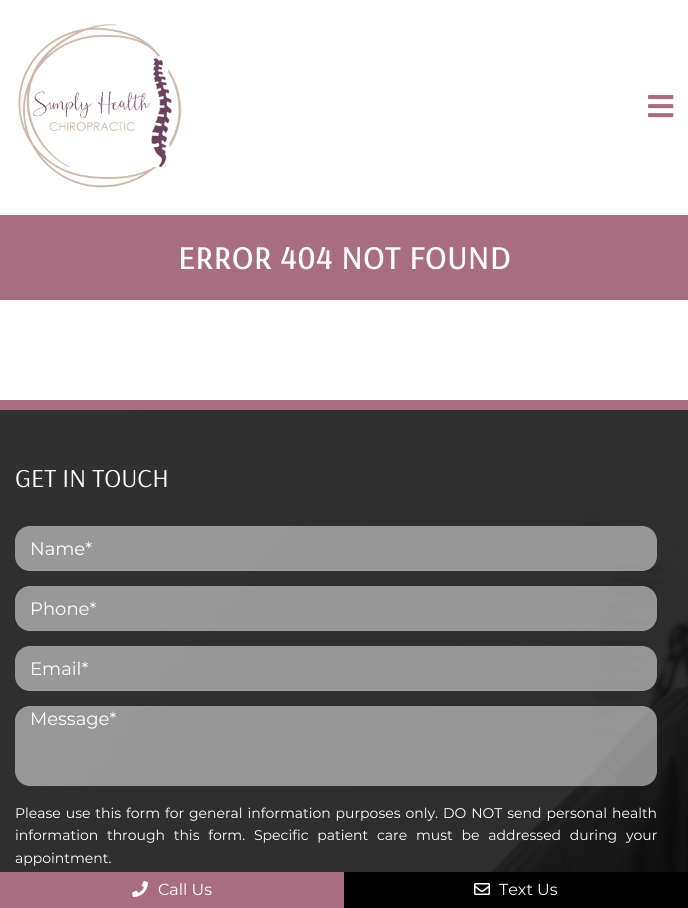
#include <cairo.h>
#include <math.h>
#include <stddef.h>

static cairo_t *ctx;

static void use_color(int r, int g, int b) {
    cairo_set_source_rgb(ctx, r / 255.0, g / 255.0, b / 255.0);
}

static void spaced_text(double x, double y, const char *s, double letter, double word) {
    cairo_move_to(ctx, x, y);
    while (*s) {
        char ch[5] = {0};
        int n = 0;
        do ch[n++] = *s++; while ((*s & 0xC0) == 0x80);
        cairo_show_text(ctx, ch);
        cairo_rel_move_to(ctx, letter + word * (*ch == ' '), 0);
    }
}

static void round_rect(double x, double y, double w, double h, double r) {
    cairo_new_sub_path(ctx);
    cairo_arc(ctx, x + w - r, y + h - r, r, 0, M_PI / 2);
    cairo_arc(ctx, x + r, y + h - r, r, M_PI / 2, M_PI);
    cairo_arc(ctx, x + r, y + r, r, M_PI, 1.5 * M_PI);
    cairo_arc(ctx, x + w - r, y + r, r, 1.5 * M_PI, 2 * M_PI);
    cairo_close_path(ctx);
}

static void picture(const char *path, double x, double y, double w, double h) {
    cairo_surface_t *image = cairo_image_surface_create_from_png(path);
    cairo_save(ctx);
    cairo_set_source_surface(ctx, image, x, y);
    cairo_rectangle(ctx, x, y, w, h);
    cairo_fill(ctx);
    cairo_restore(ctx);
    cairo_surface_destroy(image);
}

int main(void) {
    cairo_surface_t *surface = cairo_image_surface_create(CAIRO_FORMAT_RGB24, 688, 908);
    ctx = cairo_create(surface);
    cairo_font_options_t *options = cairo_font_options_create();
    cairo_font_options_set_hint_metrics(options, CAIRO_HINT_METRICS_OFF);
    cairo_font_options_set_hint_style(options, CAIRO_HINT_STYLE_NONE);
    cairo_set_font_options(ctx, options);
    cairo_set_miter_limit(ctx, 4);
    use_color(255, 255, 255);
    cairo_paint(ctx);
    picture("img1.png", 18, 24, 164, 164);
    picture("img2.png", 648, 95, 26, 23);
    use_color(168, 109, 129);
    cairo_rectangle(ctx, 0, 215, 688, 85);
    cairo_fill(ctx);
    cairo_select_font_face(ctx, "Arsenal", CAIRO_FONT_SLANT_NORMAL, CAIRO_FONT_WEIGHT_BOLD);
    cairo_set_font_size(ctx, 32);
    use_color(255, 255, 255);
    spaced_text(178, 269, "ERROR 404 NOT FOUND", 1, 0);
    use_color(168, 109, 129);
    cairo_rectangle(ctx, 0, 400, 688, 10);
    cairo_fill(ctx);
    use_color(0, 0, 0);
    cairo_rectangle(ctx, 0, 410, 688, 462);
    cairo_fill(ctx);
    picture("img3.png", 0, 410, 688, 462);
    cairo_select_font_face(ctx, "Arsenal", CAIRO_FONT_SLANT_NORMAL, CAIRO_FONT_WEIGHT_NORMAL);
    cairo_set_font_size(ctx, 26);
    use_color(255, 255, 255);
    cairo_move_to(ctx, 15, 487);
    cairo_show_text(ctx, "GET IN TOUCH");
    cairo_set_source_rgba(ctx, 1, 1, 1, 0.5);
    round_rect(15, 526, 642, 45, 15);
    cairo_fill(ctx);
    cairo_select_font_face(ctx, "Montserrat", CAIRO_FONT_SLANT_NORMAL, CAIRO_FONT_WEIGHT_NORMAL);
    cairo_set_font_size(ctx, 18);
    use_color(255, 255, 255);
    cairo_move_to(ctx, 30, 555);
    cairo_show_text(ctx, "Name*");
    cairo_set_source_rgba(ctx, 1, 1, 1, 0.5);
    round_rect(15, 586, 642, 45, 15);
    cairo_fill(ctx);
    use_color(255, 255, 255);
    cairo_move_to(ctx, 30, 615);
    cairo_show_text(ctx, "Phone*");
    cairo_set_source_rgba(ctx, 1, 1, 1, 0.5);
    round_rect(15, 646, 642, 45, 15);
    cairo_fill(ctx);
    use_color(255, 255, 255);
    cairo_move_to(ctx, 30, 675);
    cairo_show_text(ctx, "Email*");
    cairo_set_source_rgba(ctx, 1, 1, 1, 0.5);
    round_rect(15, 706, 642, 80, 15);
    cairo_fill(ctx);
    use_color(255, 255, 255);
    cairo_move_to(ctx, 30, 725);
    cairo_show_text(ctx, "Message*");
    cairo_set_font_size(ctx, 14);
    spaced_text(15, 818, "Please use this form for general information purposes only. DO NOT send personal health", 0, 1.25);
    spaced_text(15, 840, "information through this form. Specific patient care must be addressed during your", 0, 5.1);
    cairo_move_to(ctx, 15, 863);
    cairo_show_text(ctx, "appointment.");
    use_color(168, 109, 129);
    cairo_rectangle(ctx, 0, 872, 344, 36);
    cairo_fill(ctx);
    picture("img4.png", 132, 881, 16, 16);
    cairo_set_font_size(ctx, 16);
    use_color(255, 255, 255);
    cairo_move_to(ctx, 158, 895);
    cairo_show_text(ctx, "Call Us");
    use_color(0, 0, 0);
    cairo_rectangle(ctx, 344, 872, 344, 36);
    cairo_fill(ctx);
    picture("img5.png", 474, 883, 16, 12);
    use_color(255, 255, 255);
    cairo_move_to(ctx, 499, 895);
    cairo_show_text(ctx, "Text Us");
    cairo_surface_write_to_png(surface, "result.png");
    cairo_font_options_destroy(options);
    cairo_destroy(ctx);
    cairo_surface_destroy(surface);
    return 0;
}
